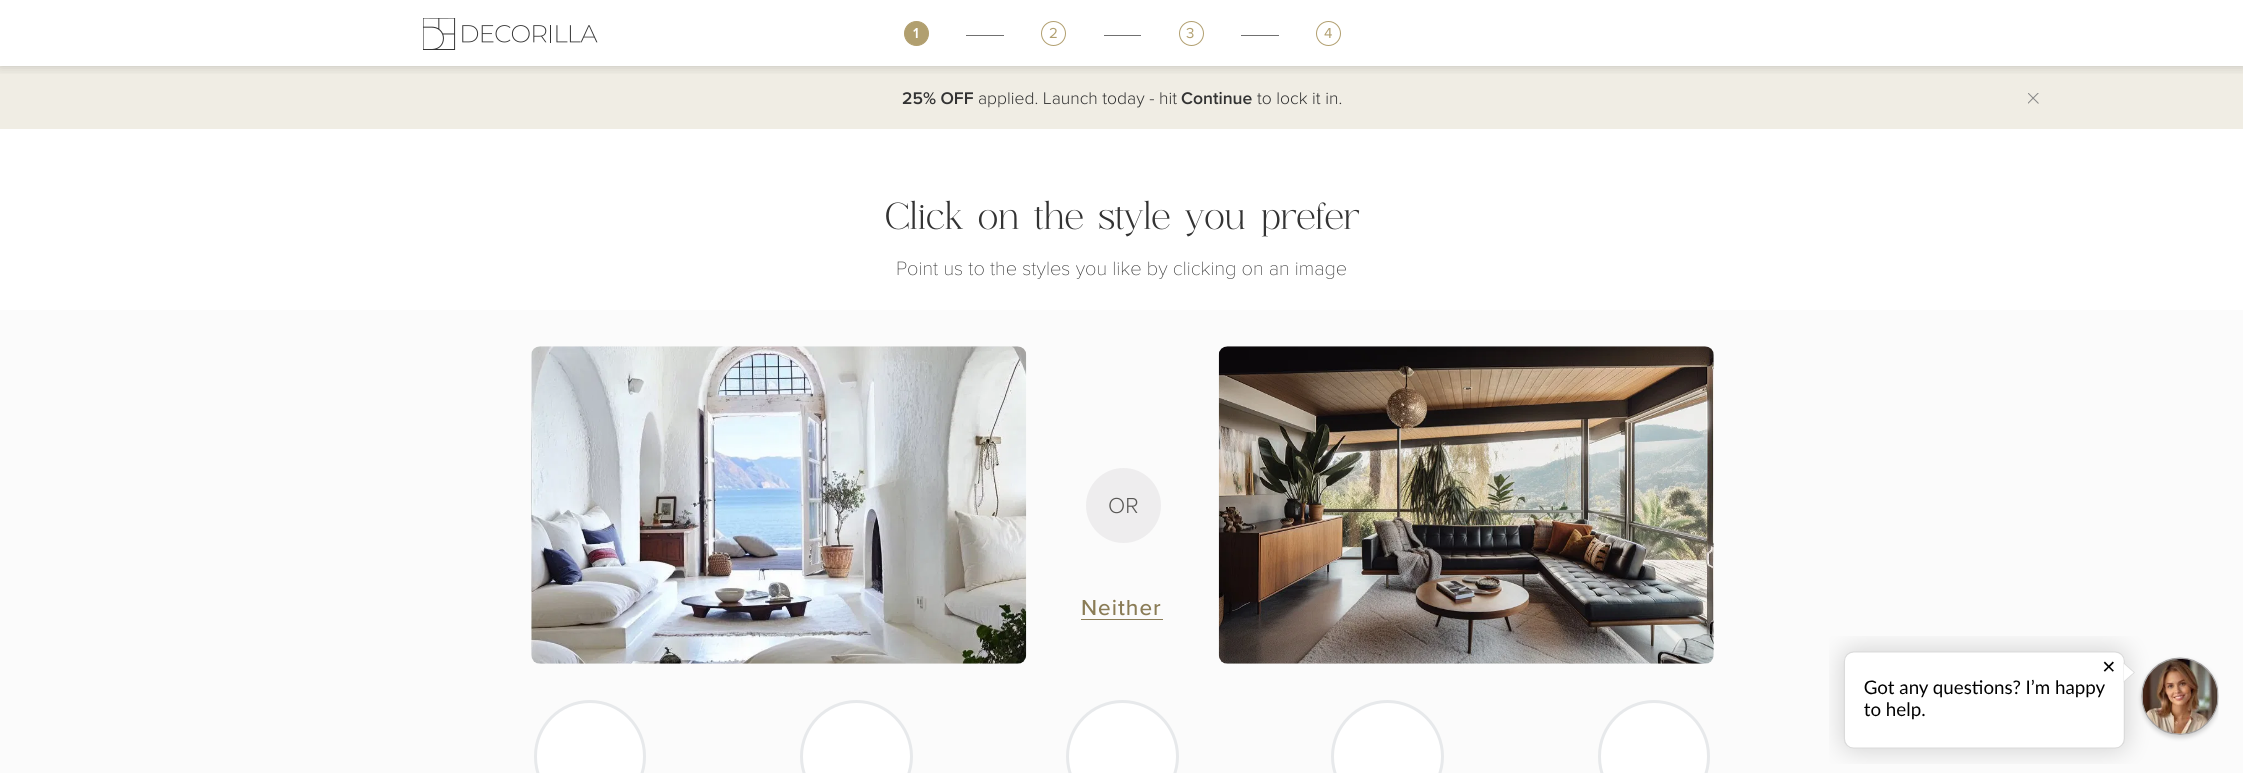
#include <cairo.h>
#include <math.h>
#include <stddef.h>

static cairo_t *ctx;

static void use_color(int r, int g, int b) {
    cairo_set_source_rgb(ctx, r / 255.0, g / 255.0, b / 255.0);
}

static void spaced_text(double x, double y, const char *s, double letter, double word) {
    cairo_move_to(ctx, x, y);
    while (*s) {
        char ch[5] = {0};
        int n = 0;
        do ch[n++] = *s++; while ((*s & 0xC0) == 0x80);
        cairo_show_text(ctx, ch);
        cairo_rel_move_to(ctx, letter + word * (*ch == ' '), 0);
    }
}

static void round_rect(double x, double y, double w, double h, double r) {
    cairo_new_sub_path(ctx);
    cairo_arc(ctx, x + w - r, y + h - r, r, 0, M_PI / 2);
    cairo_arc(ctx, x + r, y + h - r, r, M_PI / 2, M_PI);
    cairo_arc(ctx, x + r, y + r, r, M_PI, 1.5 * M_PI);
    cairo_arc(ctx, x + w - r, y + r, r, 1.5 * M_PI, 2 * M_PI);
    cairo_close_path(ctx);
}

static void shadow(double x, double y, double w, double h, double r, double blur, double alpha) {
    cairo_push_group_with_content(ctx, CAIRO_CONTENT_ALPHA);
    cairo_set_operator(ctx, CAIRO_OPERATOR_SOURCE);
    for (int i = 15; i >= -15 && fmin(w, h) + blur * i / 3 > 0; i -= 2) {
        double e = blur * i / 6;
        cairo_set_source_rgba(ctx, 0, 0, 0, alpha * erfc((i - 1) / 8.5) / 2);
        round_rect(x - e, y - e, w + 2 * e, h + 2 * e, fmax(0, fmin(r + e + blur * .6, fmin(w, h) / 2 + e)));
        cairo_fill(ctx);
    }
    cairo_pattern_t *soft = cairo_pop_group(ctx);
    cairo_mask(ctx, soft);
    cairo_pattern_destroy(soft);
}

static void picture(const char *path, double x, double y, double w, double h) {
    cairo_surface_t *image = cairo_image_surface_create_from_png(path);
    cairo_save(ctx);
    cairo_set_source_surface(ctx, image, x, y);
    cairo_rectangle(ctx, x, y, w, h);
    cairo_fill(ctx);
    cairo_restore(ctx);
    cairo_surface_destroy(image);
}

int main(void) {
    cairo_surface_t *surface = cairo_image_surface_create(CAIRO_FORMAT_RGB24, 2243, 773);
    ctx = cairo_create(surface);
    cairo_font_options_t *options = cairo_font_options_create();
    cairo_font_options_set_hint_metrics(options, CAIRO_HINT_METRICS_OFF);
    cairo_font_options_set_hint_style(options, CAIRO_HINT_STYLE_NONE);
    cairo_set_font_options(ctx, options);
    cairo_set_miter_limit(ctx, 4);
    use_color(255, 255, 255);
    cairo_paint(ctx);
    use_color(240, 237, 228);
    cairo_rectangle(ctx, 0, 66, 2243, 63);
    cairo_fill(ctx);
    cairo_save(ctx);
    cairo_rectangle(ctx, 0, 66, 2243, 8);
    cairo_clip(ctx);
    use_color(0, 0, 0);
    shadow(0, 0, 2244, 66, 0, 6, 0.2);
    cairo_restore(ctx);
    picture("img1.png", 423, 18, 175, 32);
    use_color(177, 159, 111);
    cairo_arc(ctx, 916.5, 33.5, 12, 0, 2 * M_PI);
    cairo_fill_preserve(ctx);
    cairo_set_line_width(ctx, 1);
    cairo_stroke(ctx);
    cairo_select_font_face(ctx, "Proxima Nova SemiBold", CAIRO_FONT_SLANT_NORMAL, CAIRO_FONT_WEIGHT_NORMAL);
    cairo_set_font_size(ctx, 15);
    use_color(255, 255, 255);
    cairo_move_to(ctx, 913, 38);
    cairo_show_text(ctx, "1");
    use_color(112, 112, 112);
    cairo_rectangle(ctx, 966, 35, 38, 1);
    cairo_fill(ctx);
    cairo_arc(ctx, 1053.5, 33.5, 12, 0, 2 * M_PI);
    use_color(177, 159, 111);
    cairo_stroke(ctx);
    cairo_select_font_face(ctx, "Proxima Nova", CAIRO_FONT_SLANT_NORMAL, CAIRO_FONT_WEIGHT_NORMAL);
    cairo_move_to(ctx, 1049, 38);
    cairo_show_text(ctx, "2");
    use_color(112, 112, 112);
    cairo_rectangle(ctx, 1104, 35, 37, 1);
    cairo_fill(ctx);
    cairo_arc(ctx, 1191.5, 33.5, 12, 0, 2 * M_PI);
    use_color(177, 159, 111);
    cairo_stroke(ctx);
    cairo_move_to(ctx, 1186, 38);
    cairo_show_text(ctx, "3");
    use_color(112, 112, 112);
    cairo_rectangle(ctx, 1241, 35, 38, 1);
    cairo_fill(ctx);
    cairo_arc(ctx, 1328.5, 33.5, 12, 0, 2 * M_PI);
    use_color(177, 159, 111);
    cairo_stroke(ctx);
    cairo_move_to(ctx, 1324, 38);
    cairo_show_text(ctx, "4");
    cairo_select_font_face(ctx, "Proxima Nova SemiBold", CAIRO_FONT_SLANT_NORMAL, CAIRO_FONT_WEIGHT_NORMAL);
    cairo_set_font_size(ctx, 17.5);
    use_color(51, 51, 51);
    cairo_move_to(ctx, 902, 104);
    cairo_show_text(ctx, "25% OFF");
    cairo_select_font_face(ctx, "Proxima Nova Light", CAIRO_FONT_SLANT_NORMAL, CAIRO_FONT_WEIGHT_NORMAL);
    cairo_move_to(ctx, 978, 104);
    cairo_show_text(ctx, "applied. Launch today - hit");
    cairo_select_font_face(ctx, "Proxima Nova SemiBold", CAIRO_FONT_SLANT_NORMAL, CAIRO_FONT_WEIGHT_NORMAL);
    cairo_move_to(ctx, 1181, 104);
    cairo_show_text(ctx, "Continue");
    cairo_select_font_face(ctx, "Proxima Nova Light", CAIRO_FONT_SLANT_NORMAL, CAIRO_FONT_WEIGHT_NORMAL);
    cairo_move_to(ctx, 1257, 104);
    cairo_show_text(ctx, "to lock it in.");
    picture("img2.png", 2028, 93, 11, 11);
    cairo_select_font_face(ctx, "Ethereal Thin", CAIRO_FONT_SLANT_NORMAL, CAIRO_FONT_WEIGHT_NORMAL);
    cairo_set_font_size(ctx, 37.5);
    cairo_move_to(ctx, 885, 229);
    cairo_show_text(ctx, "Click on the style you prefer");
    cairo_select_font_face(ctx, "Proxima Nova Thin", CAIRO_FONT_SLANT_NORMAL, CAIRO_FONT_WEIGHT_NORMAL);
    cairo_set_font_size(ctx, 20);
    cairo_move_to(ctx, 896, 275);
    cairo_show_text(ctx, "Point us to the styles you like by clicking on an image");
    use_color(251, 251, 251);
    cairo_rectangle(ctx, 0, 310, 2243, 463);
    cairo_fill(ctx);
    picture("img3.png", 531, 346, 496, 318);
    use_color(238, 237, 238);
    cairo_arc(ctx, 1123.5, 505.5, 37.5, 0, 2 * M_PI);
    cairo_fill(ctx);
    cairo_select_font_face(ctx, "Proxima Nova Light", CAIRO_FONT_SLANT_NORMAL, CAIRO_FONT_WEIGHT_NORMAL);
    cairo_set_font_size(ctx, 22.5);
    use_color(88, 87, 85);
    cairo_move_to(ctx, 1108, 513);
    cairo_show_text(ctx, "OR");
    picture("img4.png", 1218, 346, 496, 318);
    cairo_select_font_face(ctx, "Proxima Nova Medium", CAIRO_FONT_SLANT_NORMAL, CAIRO_FONT_WEIGHT_NORMAL);
    use_color(138, 124, 86);
    spaced_text(1081, 615, "Neither", 1, 0);
    cairo_rectangle(ctx, 1081, 619, 82, 1);
    cairo_fill(ctx);
    use_color(255, 255, 255);
    round_rect(535.5, 701.5, 109, 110, 54.5);
    cairo_fill_preserve(ctx);
    use_color(231, 233, 235);
    cairo_set_line_width(ctx, 3);
    cairo_stroke(ctx);
    use_color(255, 255, 255);
    cairo_arc(ctx, 856.5, 756.5, 55, 0, 2 * M_PI);
    cairo_fill_preserve(ctx);
    use_color(231, 233, 235);
    cairo_stroke(ctx);
    use_color(255, 255, 255);
    cairo_arc(ctx, 1122.5, 756.5, 55, 0, 2 * M_PI);
    cairo_fill_preserve(ctx);
    use_color(231, 233, 235);
    cairo_stroke(ctx);
    use_color(255, 255, 255);
    cairo_arc(ctx, 1387.5, 756.5, 55, 0, 2 * M_PI);
    cairo_fill_preserve(ctx);
    use_color(231, 233, 235);
    cairo_stroke(ctx);
    use_color(255, 255, 255);
    round_rect(1599.5, 701.5, 109, 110, 54.5);
    cairo_fill_preserve(ctx);
    use_color(231, 233, 235);
    cairo_stroke(ctx);
    picture("img5.png", 1829, 636, 390, 128);
    cairo_surface_write_to_png(surface, "result.png");
    cairo_font_options_destroy(options);
    cairo_destroy(ctx);
    cairo_surface_destroy(surface);
    return 0;
}
